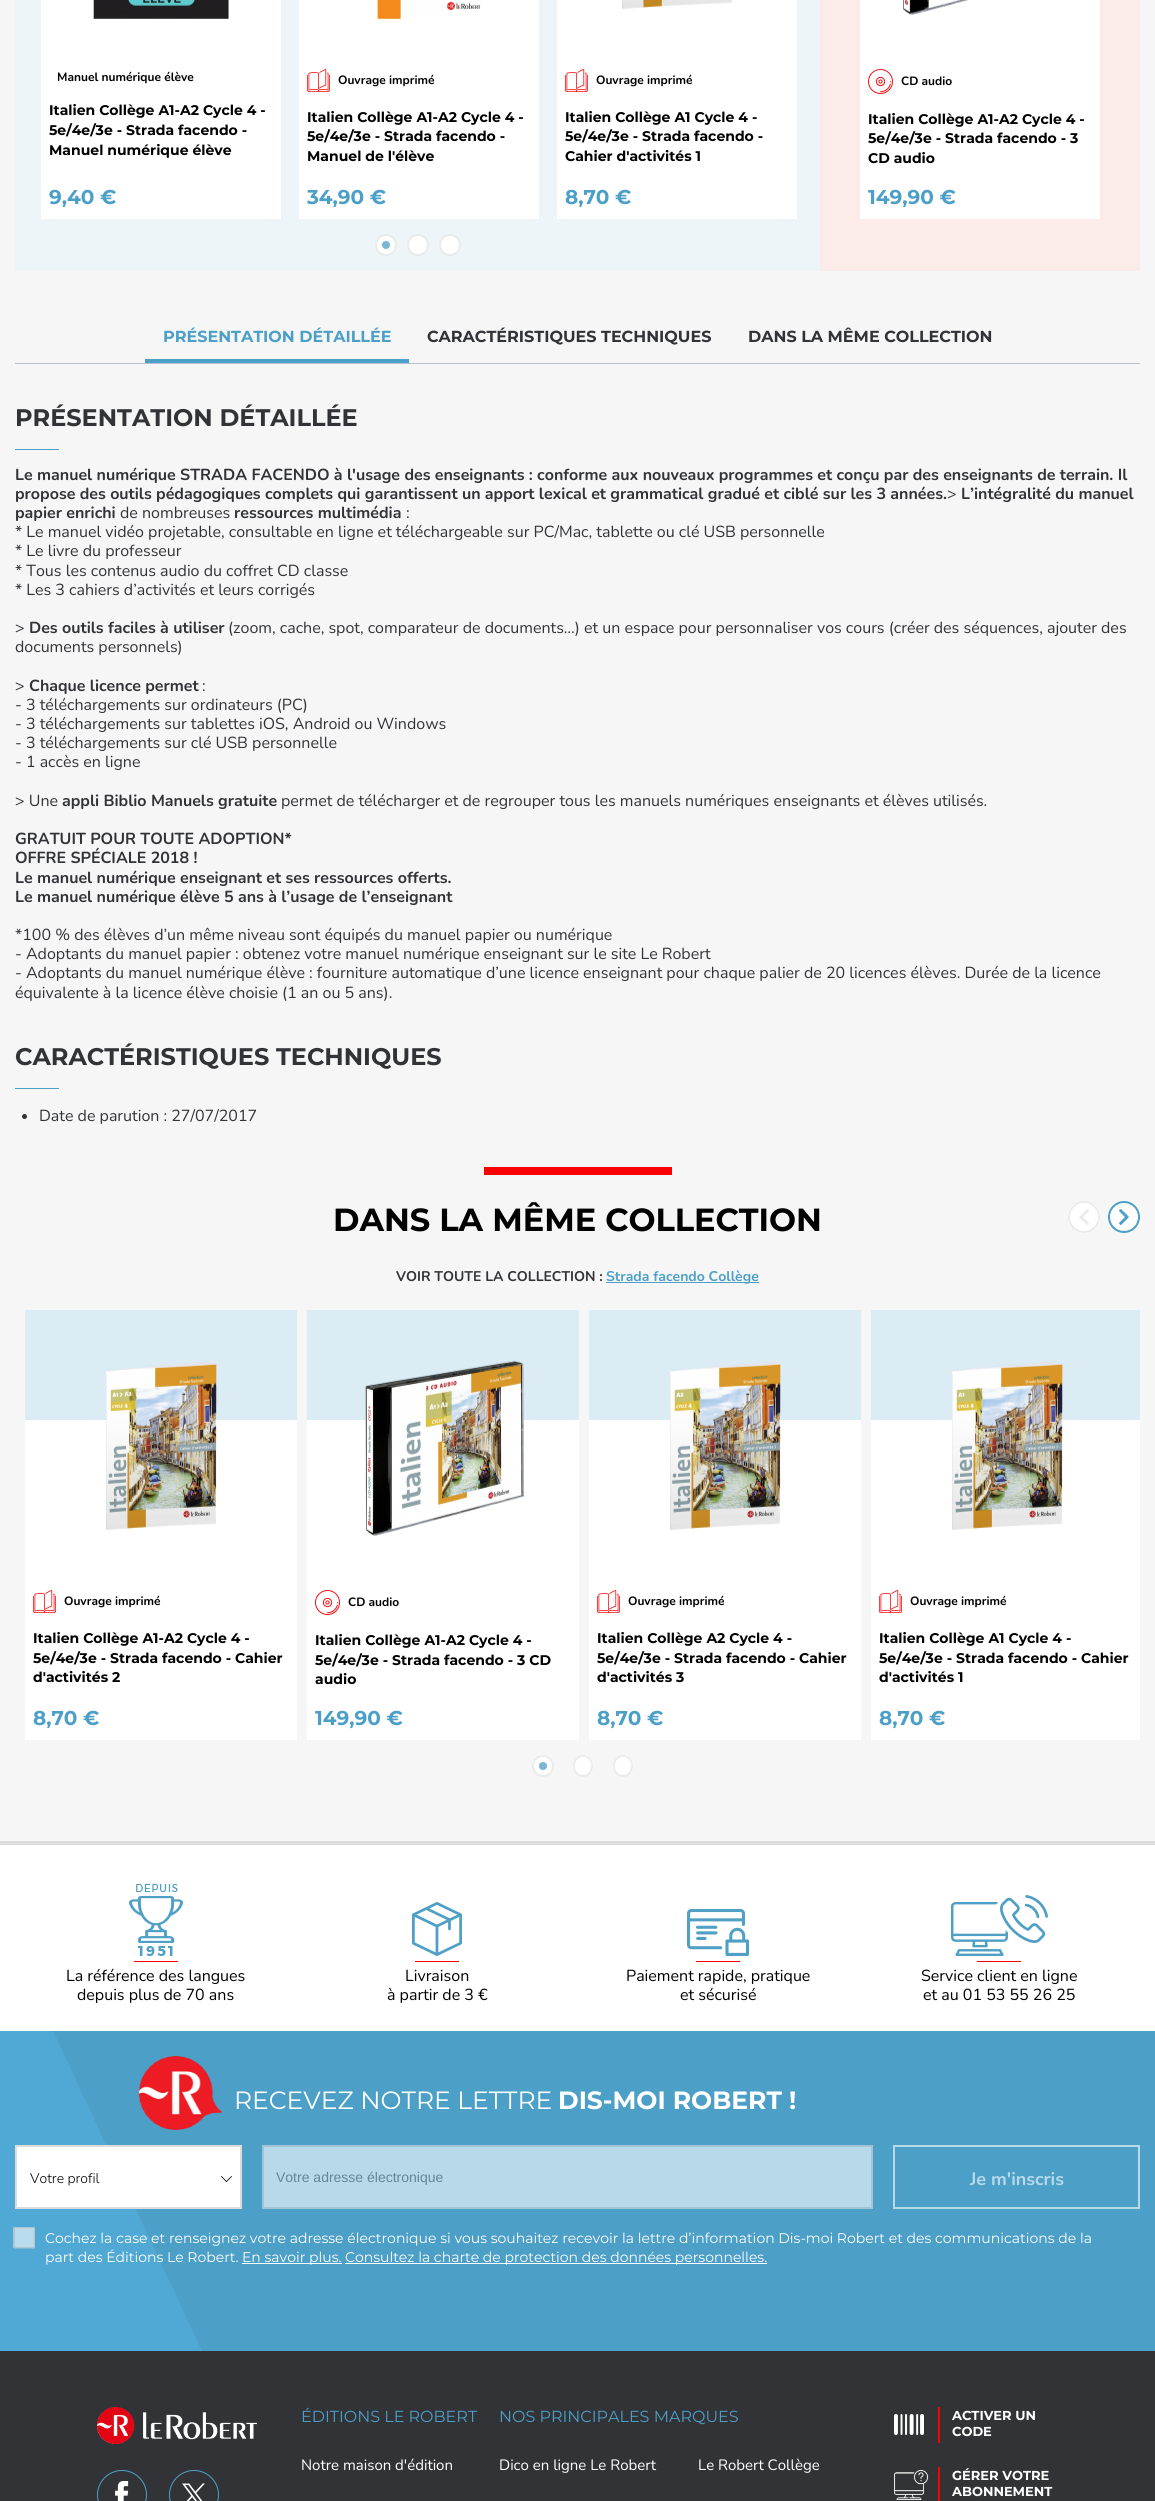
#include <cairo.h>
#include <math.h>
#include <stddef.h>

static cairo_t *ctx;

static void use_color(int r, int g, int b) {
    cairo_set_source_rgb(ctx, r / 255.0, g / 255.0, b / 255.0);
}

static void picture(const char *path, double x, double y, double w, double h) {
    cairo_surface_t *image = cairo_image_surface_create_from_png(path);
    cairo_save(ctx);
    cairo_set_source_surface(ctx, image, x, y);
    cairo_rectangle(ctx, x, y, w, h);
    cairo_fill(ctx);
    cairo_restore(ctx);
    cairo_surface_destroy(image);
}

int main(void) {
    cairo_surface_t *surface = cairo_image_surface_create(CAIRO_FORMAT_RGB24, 1155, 2501);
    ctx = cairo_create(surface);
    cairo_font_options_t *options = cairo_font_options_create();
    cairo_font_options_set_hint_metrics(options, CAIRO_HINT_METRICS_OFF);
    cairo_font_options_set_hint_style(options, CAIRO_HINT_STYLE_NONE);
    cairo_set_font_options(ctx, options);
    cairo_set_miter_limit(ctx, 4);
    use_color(50, 51, 55);
    cairo_paint(ctx);
    use_color(246, 246, 246);
    cairo_rectangle(ctx, 0, 0, 1155, 1841);
    cairo_fill(ctx);
    use_color(237, 245, 249);
    cairo_rectangle(ctx, 15, 0, 805, 271);
    cairo_fill(ctx);
    use_color(255, 255, 255);
    cairo_rectangle(ctx, 41, 0, 240, 219);
    cairo_fill(ctx);
    picture("img1.png", 93, 0, 136, 19);
    cairo_select_font_face(ctx, "Nunito", CAIRO_FONT_SLANT_NORMAL, CAIRO_FONT_WEIGHT_BOLD);
    cairo_set_font_size(ctx, 12);
    use_color(0, 0, 0);
    cairo_move_to(ctx, 57, 81);
    cairo_show_text(ctx, "Manuel numérique élève");
    cairo_select_font_face(ctx, "Montserrat", CAIRO_FONT_SLANT_NORMAL, CAIRO_FONT_WEIGHT_BOLD);
    cairo_set_font_size(ctx, 14);
    cairo_move_to(ctx, 49, 115);
    cairo_show_text(ctx, "Italien Collège A1-A2 Cycle 4 -");
    cairo_move_to(ctx, 49, 135);
    cairo_show_text(ctx, "5e/4e/3e - Strada facendo -");
    cairo_move_to(ctx, 49, 155);
    cairo_show_text(ctx, "Manuel numérique élève");
    cairo_set_font_size(ctx, 20);
    use_color(76, 159, 199);
    cairo_move_to(ctx, 49, 204);
    cairo_show_text(ctx, "9,40 €");
    use_color(255, 255, 255);
    cairo_rectangle(ctx, 299, 0, 240, 219);
    cairo_fill(ctx);
    picture("img2.png", 377, 0, 104, 19);
    picture("img3.png", 307, 69, 23, 23);
    cairo_select_font_face(ctx, "Nunito", CAIRO_FONT_SLANT_NORMAL, CAIRO_FONT_WEIGHT_BOLD);
    cairo_set_font_size(ctx, 12);
    use_color(0, 0, 0);
    cairo_move_to(ctx, 338, 84);
    cairo_show_text(ctx, "Ouvrage imprimé");
    cairo_select_font_face(ctx, "Montserrat", CAIRO_FONT_SLANT_NORMAL, CAIRO_FONT_WEIGHT_BOLD);
    cairo_set_font_size(ctx, 14);
    cairo_move_to(ctx, 307, 122);
    cairo_show_text(ctx, "Italien Collège A1-A2 Cycle 4 -");
    cairo_move_to(ctx, 307, 141);
    cairo_show_text(ctx, "5e/4e/3e - Strada facendo -");
    cairo_move_to(ctx, 307, 161);
    cairo_show_text(ctx, "Manuel de l'élève");
    cairo_set_font_size(ctx, 20);
    use_color(76, 159, 199);
    cairo_move_to(ctx, 307, 204);
    cairo_show_text(ctx, "34,90 €");
    use_color(255, 255, 255);
    cairo_rectangle(ctx, 557, 0, 240, 219);
    cairo_fill(ctx);
    picture("img4.png", 622, 0, 110, 9);
    picture("img3.png", 565, 69, 23, 23);
    cairo_select_font_face(ctx, "Nunito", CAIRO_FONT_SLANT_NORMAL, CAIRO_FONT_WEIGHT_BOLD);
    cairo_set_font_size(ctx, 12);
    use_color(0, 0, 0);
    cairo_move_to(ctx, 596, 84);
    cairo_show_text(ctx, "Ouvrage imprimé");
    cairo_select_font_face(ctx, "Montserrat", CAIRO_FONT_SLANT_NORMAL, CAIRO_FONT_WEIGHT_BOLD);
    cairo_set_font_size(ctx, 14);
    cairo_move_to(ctx, 565, 122);
    cairo_show_text(ctx, "Italien Collège A1 Cycle 4 -");
    cairo_move_to(ctx, 565, 141);
    cairo_show_text(ctx, "5e/4e/3e - Strada facendo -");
    cairo_move_to(ctx, 565, 161);
    cairo_show_text(ctx, "Cahier d'activités 1");
    cairo_set_font_size(ctx, 20);
    use_color(76, 159, 199);
    cairo_move_to(ctx, 565, 204);
    cairo_show_text(ctx, "8,70 €");
    use_color(255, 255, 255);
    cairo_new_path(ctx);
    cairo_arc(ctx, 386, 245, 10, 0, 2 * M_PI);
    cairo_fill_preserve(ctx);
    use_color(235, 235, 235);
    cairo_stroke(ctx);
    use_color(121, 183, 213);
    cairo_arc(ctx, 386, 245, 4, 0, 2 * M_PI);
    cairo_fill(ctx);
    use_color(255, 255, 255);
    cairo_arc(ctx, 418, 245, 10, 0, 2 * M_PI);
    cairo_fill_preserve(ctx);
    use_color(235, 235, 235);
    cairo_stroke(ctx);
    use_color(255, 255, 255);
    cairo_arc(ctx, 450, 245, 10, 0, 2 * M_PI);
    cairo_fill_preserve(ctx);
    use_color(235, 235, 235);
    cairo_stroke(ctx);
    use_color(251, 236, 233);
    cairo_rectangle(ctx, 820, 0, 320, 271);
    cairo_fill(ctx);
    use_color(255, 255, 255);
    cairo_rectangle(ctx, 860, 0, 240, 219);
    cairo_fill(ctx);
    picture("img5.png", 903, 0, 66, 15);
    picture("img6.png", 868, 69, 25, 25);
    cairo_select_font_face(ctx, "Nunito", CAIRO_FONT_SLANT_NORMAL, CAIRO_FONT_WEIGHT_BOLD);
    cairo_set_font_size(ctx, 12);
    use_color(0, 0, 0);
    cairo_move_to(ctx, 901, 85);
    cairo_show_text(ctx, "CD audio");
    cairo_select_font_face(ctx, "Montserrat", CAIRO_FONT_SLANT_NORMAL, CAIRO_FONT_WEIGHT_BOLD);
    cairo_set_font_size(ctx, 14);
    cairo_move_to(ctx, 868, 124);
    cairo_show_text(ctx, "Italien Collège A1-A2 Cycle 4 -");
    cairo_move_to(ctx, 868, 143);
    cairo_show_text(ctx, "5e/4e/3e - Strada facendo - 3");
    cairo_move_to(ctx, 868, 163);
    cairo_show_text(ctx, "CD audio");
    cairo_set_font_size(ctx, 20);
    use_color(76, 159, 199);
    cairo_move_to(ctx, 868, 204);
    cairo_show_text(ctx, "149,90 €");
    use_color(185, 190, 208);
    cairo_rectangle(ctx, 15, 363, 1125, 1);
    cairo_fill(ctx);
    use_color(76, 159, 199);
    cairo_rectangle(ctx, 145, 359, 264, 4);
    cairo_fill(ctx);
    cairo_set_font_size(ctx, 16);
    cairo_move_to(ctx, 163, 342);
    cairo_show_text(ctx, "PRÉSENTATION DÉTAILLÉE");
    use_color(50, 51, 55);
    cairo_move_to(ctx, 427, 342);
    cairo_show_text(ctx, "CARACTÉRISTIQUES TECHNIQUES");
    cairo_move_to(ctx, 748, 342);
    cairo_show_text(ctx, "DANS LA MÊME COLLECTION");
    cairo_set_font_size(ctx, 24);
    cairo_move_to(ctx, 15, 426);
    cairo_show_text(ctx, "PRÉSENTATION DÉTAILLÉE");
    use_color(76, 159, 199);
    cairo_rectangle(ctx, 15, 449, 44, 1);
    cairo_fill(ctx);
    cairo_select_font_face(ctx, "Nunito", CAIRO_FONT_SLANT_NORMAL, CAIRO_FONT_WEIGHT_BOLD);
    cairo_set_font_size(ctx, 16);
    use_color(50, 51, 55);
    cairo_move_to(ctx, 15, 480);
    cairo_show_text(ctx, "Le manuel numérique STRADA FACENDO à l'usage des enseignants : conforme aux nouveaux programmes et conçu par des enseignants de terrain. Il");
    cairo_move_to(ctx, 15, 499);
    cairo_show_text(ctx, "propose des outils pédagogiques complets qui garantissent un apport lexical et grammatical gradué et ciblé sur les 3 années.");
    cairo_select_font_face(ctx, "Nunito", CAIRO_FONT_SLANT_NORMAL, CAIRO_FONT_WEIGHT_NORMAL);
    cairo_move_to(ctx, 947, 499);
    cairo_show_text(ctx, ">");
    cairo_select_font_face(ctx, "Nunito", CAIRO_FONT_SLANT_NORMAL, CAIRO_FONT_WEIGHT_BOLD);
    cairo_move_to(ctx, 961, 499);
    cairo_show_text(ctx, "L’intégralité du manuel");
    cairo_move_to(ctx, 15, 518);
    cairo_show_text(ctx, "papier enrichi");
    cairo_select_font_face(ctx, "Nunito", CAIRO_FONT_SLANT_NORMAL, CAIRO_FONT_WEIGHT_NORMAL);
    cairo_move_to(ctx, 120, 518);
    cairo_show_text(ctx, "de nombreuses");
    cairo_select_font_face(ctx, "Nunito", CAIRO_FONT_SLANT_NORMAL, CAIRO_FONT_WEIGHT_BOLD);
    cairo_move_to(ctx, 234, 518);
    cairo_show_text(ctx, "ressources multimédia");
    cairo_select_font_face(ctx, "Nunito", CAIRO_FONT_SLANT_NORMAL, CAIRO_FONT_WEIGHT_NORMAL);
    cairo_move_to(ctx, 406, 518);
    cairo_show_text(ctx, ":");
    cairo_move_to(ctx, 15, 537);
    cairo_show_text(ctx, "* Le manuel vidéo projetable, consultable en ligne et téléchargeable sur PC/Mac, tablette ou clé USB personnelle");
    cairo_move_to(ctx, 15, 556);
    cairo_show_text(ctx, "* Le livre du professeur");
    cairo_move_to(ctx, 15, 576);
    cairo_show_text(ctx, "* Tous les contenus audio du coffret CD classe");
    cairo_move_to(ctx, 15, 595);
    cairo_show_text(ctx, "* Les 3 cahiers d’activités et leurs corrigés");
    cairo_move_to(ctx, 15, 633);
    cairo_show_text(ctx, ">");
    cairo_select_font_face(ctx, "Nunito", CAIRO_FONT_SLANT_NORMAL, CAIRO_FONT_WEIGHT_BOLD);
    cairo_move_to(ctx, 29, 633);
    cairo_show_text(ctx, "Des outils faciles à utiliser");
    cairo_select_font_face(ctx, "Nunito", CAIRO_FONT_SLANT_NORMAL, CAIRO_FONT_WEIGHT_NORMAL);
    cairo_move_to(ctx, 228, 633);
    cairo_show_text(ctx, "(zoom, cache, spot, comparateur de documents…) et un espace pour personnaliser vos cours (créer des séquences, ajouter des");
    cairo_move_to(ctx, 15, 652);
    cairo_show_text(ctx, "documents personnels)");
    cairo_move_to(ctx, 15, 691);
    cairo_show_text(ctx, ">");
    cairo_select_font_face(ctx, "Nunito", CAIRO_FONT_SLANT_NORMAL, CAIRO_FONT_WEIGHT_BOLD);
    cairo_move_to(ctx, 29, 691);
    cairo_show_text(ctx, "Chaque licence permet");
    cairo_select_font_face(ctx, "Nunito", CAIRO_FONT_SLANT_NORMAL, CAIRO_FONT_WEIGHT_NORMAL);
    cairo_move_to(ctx, 202, 691);
    cairo_show_text(ctx, ":");
    cairo_move_to(ctx, 15, 710);
    cairo_show_text(ctx, "- 3 téléchargements sur ordinateurs (PC)");
    cairo_move_to(ctx, 15, 729);
    cairo_show_text(ctx, "- 3 téléchargements sur tablettes iOS, Android ou Windows");
    cairo_move_to(ctx, 15, 748);
    cairo_show_text(ctx, "- 3 téléchargements sur clé USB personnelle");
    cairo_move_to(ctx, 15, 767);
    cairo_show_text(ctx, "- 1 accès en ligne");
    cairo_move_to(ctx, 15, 806);
    cairo_show_text(ctx, "> Une");
    cairo_select_font_face(ctx, "Nunito", CAIRO_FONT_SLANT_NORMAL, CAIRO_FONT_WEIGHT_BOLD);
    cairo_move_to(ctx, 62, 806);
    cairo_show_text(ctx, "appli Biblio Manuels gratuite");
    cairo_select_font_face(ctx, "Nunito", CAIRO_FONT_SLANT_NORMAL, CAIRO_FONT_WEIGHT_NORMAL);
    cairo_move_to(ctx, 281, 806);
    cairo_show_text(ctx, "permet de télécharger et de regrouper tous les manuels numériques enseignants et élèves utilisés.");
    cairo_select_font_face(ctx, "Nunito", CAIRO_FONT_SLANT_NORMAL, CAIRO_FONT_WEIGHT_BOLD);
    cairo_move_to(ctx, 15, 844);
    cairo_show_text(ctx, "GRATUIT POUR TOUTE ADOPTION*");
    cairo_move_to(ctx, 15, 863);
    cairo_show_text(ctx, "OFFRE SPÉCIALE 2018 !");
    cairo_move_to(ctx, 15, 883);
    cairo_show_text(ctx, "Le manuel numérique enseignant et ses ressources offerts.");
    cairo_move_to(ctx, 15, 902);
    cairo_show_text(ctx, "Le manuel numérique élève 5 ans à l’usage de l’enseignant");
    cairo_select_font_face(ctx, "Nunito", CAIRO_FONT_SLANT_NORMAL, CAIRO_FONT_WEIGHT_NORMAL);
    cairo_move_to(ctx, 15, 940);
    cairo_show_text(ctx, "*100 % des élèves d’un même niveau sont équipés du manuel papier ou numérique");
    cairo_move_to(ctx, 15, 959);
    cairo_show_text(ctx, "- Adoptants du manuel papier : obtenez votre manuel numérique enseignant sur le site Le Robert");
    cairo_move_to(ctx, 15, 978);
    cairo_show_text(ctx, "- Adoptants du manuel numérique élève : fourniture automatique d’une licence enseignant pour chaque palier de 20 licences élèves. Durée de la licence");
    cairo_move_to(ctx, 15, 998);
    cairo_show_text(ctx, "équivalente à la licence élève choisie (1 an ou 5 ans).");
    cairo_select_font_face(ctx, "Montserrat", CAIRO_FONT_SLANT_NORMAL, CAIRO_FONT_WEIGHT_BOLD);
    cairo_set_font_size(ctx, 24);
    cairo_move_to(ctx, 15, 1065);
    cairo_show_text(ctx, "CARACTÉRISTIQUES TECHNIQUES");
    use_color(76, 159, 199);
    cairo_rectangle(ctx, 15, 1088, 44, 1);
    cairo_fill(ctx);
    use_color(50, 51, 55);
    cairo_arc(ctx, 24.5, 1116.5, 2.5, 0, 2 * M_PI);
    cairo_fill(ctx);
    cairo_select_font_face(ctx, "Nunito", CAIRO_FONT_SLANT_NORMAL, CAIRO_FONT_WEIGHT_NORMAL);
    cairo_set_font_size(ctx, 16);
    cairo_move_to(ctx, 39, 1121);
    cairo_show_text(ctx, "Date de parution : 27/07/2017");
    use_color(250, 0, 3);
    cairo_rectangle(ctx, 484, 1167, 188, 8);
    cairo_fill(ctx);
    cairo_select_font_face(ctx, "Montserrat", CAIRO_FONT_SLANT_NORMAL, CAIRO_FONT_WEIGHT_BOLD);
    cairo_set_font_size(ctx, 32);
    use_color(0, 0, 0);
    cairo_move_to(ctx, 333, 1231);
    cairo_show_text(ctx, "DANS LA MÊME COLLECTION");
    cairo_select_font_face(ctx, "Nunito", CAIRO_FONT_SLANT_NORMAL, CAIRO_FONT_WEIGHT_BOLD);
    cairo_set_font_size(ctx, 14);
    use_color(50, 51, 55);
    cairo_move_to(ctx, 396, 1281);
    cairo_show_text(ctx, "VOIR TOUTE LA COLLECTION :");
    use_color(76, 159, 199);
    cairo_rectangle(ctx, 606, 1282, 153, 1);
    cairo_fill(ctx);
    cairo_move_to(ctx, 606, 1281);
    cairo_show_text(ctx, "Strada facendo Collège");
    use_color(255, 255, 255);
    cairo_new_path(ctx);
    cairo_move_to(ctx, 1084, 1233);
    cairo_curve_to(ctx, 1075, 1233, 1068, 1226, 1068, 1217);
    cairo_curve_to(ctx, 1068, 1208, 1075, 1201, 1084, 1201);
    cairo_curve_to(ctx, 1093, 1201, 1100, 1208, 1100, 1217);
    cairo_curve_to(ctx, 1100, 1226, 1093, 1233, 1084, 1233);
    cairo_close_path(ctx);
    cairo_fill(ctx);
    picture("img7.png", 1079, 1209, 10, 16);
    cairo_new_path(ctx);
    cairo_move_to(ctx, 1084, 1232);
    cairo_curve_to(ctx, 1075.5, 1232, 1069, 1225.5, 1069, 1217);
    cairo_curve_to(ctx, 1069, 1209, 1075.5, 1202, 1084, 1202);
    cairo_curve_to(ctx, 1092.5, 1202, 1099, 1209, 1099, 1217);
    cairo_curve_to(ctx, 1099, 1225.5, 1092.5, 1232, 1084, 1232);
    cairo_close_path(ctx);
    use_color(235, 235, 235);
    cairo_stroke(ctx);
    use_color(255, 255, 255);
    cairo_arc(ctx, 1124, 1217, 16, 0, 2 * M_PI);
    cairo_fill(ctx);
    picture("img8.png", 1119, 1209, 10, 16);
    cairo_arc(ctx, 1124, 1217, 15, 0, 2 * M_PI);
    use_color(76, 159, 199);
    cairo_stroke(ctx);
    use_color(255, 255, 255);
    cairo_rectangle(ctx, 25, 1420, 272, 320);
    cairo_fill(ctx);
    use_color(219, 236, 244);
    cairo_rectangle(ctx, 25, 1310, 272, 110);
    cairo_fill(ctx);
    picture("img9.png", 106, 1361, 111, 169);
    picture("img3.png", 33, 1590, 23, 23);
    cairo_set_font_size(ctx, 12);
    use_color(0, 0, 0);
    cairo_move_to(ctx, 64, 1605);
    cairo_show_text(ctx, "Ouvrage imprimé");
    cairo_select_font_face(ctx, "Montserrat", CAIRO_FONT_SLANT_NORMAL, CAIRO_FONT_WEIGHT_BOLD);
    cairo_set_font_size(ctx, 14);
    cairo_move_to(ctx, 33, 1643);
    cairo_show_text(ctx, "Italien Collège A1-A2 Cycle 4 -");
    cairo_move_to(ctx, 33, 1663);
    cairo_show_text(ctx, "5e/4e/3e - Strada facendo - Cahier");
    cairo_move_to(ctx, 33, 1682);
    cairo_show_text(ctx, "d'activités 2");
    cairo_set_font_size(ctx, 20);
    use_color(76, 159, 199);
    cairo_move_to(ctx, 33, 1725);
    cairo_show_text(ctx, "8,70 €");
    use_color(255, 255, 255);
    cairo_rectangle(ctx, 307, 1420, 272, 320);
    cairo_fill(ctx);
    use_color(219, 236, 244);
    cairo_rectangle(ctx, 307, 1310, 272, 110);
    cairo_fill(ctx);
    picture("img10.png", 365, 1360, 159, 176);
    picture("img6.png", 315, 1590, 25, 25);
    cairo_select_font_face(ctx, "Nunito", CAIRO_FONT_SLANT_NORMAL, CAIRO_FONT_WEIGHT_BOLD);
    cairo_set_font_size(ctx, 12);
    use_color(0, 0, 0);
    cairo_move_to(ctx, 348, 1606);
    cairo_show_text(ctx, "CD audio");
    cairo_select_font_face(ctx, "Montserrat", CAIRO_FONT_SLANT_NORMAL, CAIRO_FONT_WEIGHT_BOLD);
    cairo_set_font_size(ctx, 14);
    cairo_move_to(ctx, 315, 1645);
    cairo_show_text(ctx, "Italien Collège A1-A2 Cycle 4 -");
    cairo_move_to(ctx, 315, 1665);
    cairo_show_text(ctx, "5e/4e/3e - Strada facendo - 3 CD");
    cairo_move_to(ctx, 315, 1684);
    cairo_show_text(ctx, "audio");
    cairo_set_font_size(ctx, 20);
    use_color(76, 159, 199);
    cairo_move_to(ctx, 315, 1725);
    cairo_show_text(ctx, "149,90 €");
    use_color(255, 255, 255);
    cairo_rectangle(ctx, 589, 1420, 272, 320);
    cairo_fill(ctx);
    use_color(219, 236, 244);
    cairo_rectangle(ctx, 589, 1310, 272, 110);
    cairo_fill(ctx);
    picture("img11.png", 670, 1361, 111, 169);
    picture("img3.png", 597, 1590, 23, 23);
    cairo_select_font_face(ctx, "Nunito", CAIRO_FONT_SLANT_NORMAL, CAIRO_FONT_WEIGHT_BOLD);
    cairo_set_font_size(ctx, 12);
    use_color(0, 0, 0);
    cairo_move_to(ctx, 628, 1605);
    cairo_show_text(ctx, "Ouvrage imprimé");
    cairo_select_font_face(ctx, "Montserrat", CAIRO_FONT_SLANT_NORMAL, CAIRO_FONT_WEIGHT_BOLD);
    cairo_set_font_size(ctx, 14);
    cairo_move_to(ctx, 597, 1643);
    cairo_show_text(ctx, "Italien Collège A2 Cycle 4 -");
    cairo_move_to(ctx, 597, 1663);
    cairo_show_text(ctx, "5e/4e/3e - Strada facendo - Cahier");
    cairo_move_to(ctx, 597, 1682);
    cairo_show_text(ctx, "d'activités 3");
    cairo_set_font_size(ctx, 20);
    use_color(76, 159, 199);
    cairo_move_to(ctx, 597, 1725);
    cairo_show_text(ctx, "8,70 €");
    use_color(255, 255, 255);
    cairo_rectangle(ctx, 871, 1420, 269, 320);
    cairo_fill(ctx);
    use_color(219, 236, 244);
    cairo_rectangle(ctx, 871, 1310, 269, 110);
    cairo_fill(ctx);
    picture("img12.png", 952, 1361, 111, 169);
    picture("img3.png", 879, 1590, 23, 23);
    cairo_select_font_face(ctx, "Nunito", CAIRO_FONT_SLANT_NORMAL, CAIRO_FONT_WEIGHT_BOLD);
    cairo_set_font_size(ctx, 12);
    use_color(0, 0, 0);
    cairo_move_to(ctx, 910, 1605);
    cairo_show_text(ctx, "Ouvrage imprimé");
    cairo_select_font_face(ctx, "Montserrat", CAIRO_FONT_SLANT_NORMAL, CAIRO_FONT_WEIGHT_BOLD);
    cairo_set_font_size(ctx, 14);
    cairo_move_to(ctx, 879, 1643);
    cairo_show_text(ctx, "Italien Collège A1 Cycle 4 -");
    cairo_move_to(ctx, 879, 1663);
    cairo_show_text(ctx, "5e/4e/3e - Strada facendo - Cahier");
    cairo_move_to(ctx, 879, 1682);
    cairo_show_text(ctx, "d'activités 1");
    cairo_set_font_size(ctx, 20);
    use_color(76, 159, 199);
    cairo_move_to(ctx, 879, 1725);
    cairo_show_text(ctx, "8,70 €");
    use_color(255, 255, 255);
    cairo_new_path(ctx);
    cairo_arc(ctx, 543, 1766, 10, 0, 2 * M_PI);
    cairo_fill_preserve(ctx);
    use_color(235, 235, 235);
    cairo_stroke(ctx);
    use_color(121, 183, 213);
    cairo_arc(ctx, 543, 1766, 4, 0, 2 * M_PI);
    cairo_fill(ctx);
    use_color(255, 255, 255);
    cairo_new_path(ctx);
    cairo_move_to(ctx, 583, 1755);
    cairo_curve_to(ctx, 588.5, 1755, 593, 1760, 593, 1766);
    cairo_curve_to(ctx, 593, 1772, 588.5, 1777, 583, 1777);
    cairo_curve_to(ctx, 577.5, 1777, 573, 1772, 573, 1766);
    cairo_curve_to(ctx, 573, 1760, 577.5, 1755, 583, 1755);
    cairo_close_path(ctx);
    cairo_fill(ctx);
    cairo_new_path(ctx);
    cairo_move_to(ctx, 583, 1756);
    cairo_curve_to(ctx, 595, 1756, 595, 1776, 583, 1776);
    cairo_curve_to(ctx, 571, 1776, 571, 1756, 583, 1756);
    cairo_close_path(ctx);
    use_color(235, 235, 235);
    cairo_stroke(ctx);
    use_color(255, 255, 255);
    cairo_new_path(ctx);
    cairo_move_to(ctx, 623, 1755);
    cairo_curve_to(ctx, 628.5, 1755, 633, 1760, 633, 1766);
    cairo_curve_to(ctx, 633, 1772, 628.5, 1777, 623, 1777);
    cairo_curve_to(ctx, 617.5, 1777, 613, 1772, 613, 1766);
    cairo_curve_to(ctx, 613, 1760, 617.5, 1755, 623, 1755);
    cairo_close_path(ctx);
    cairo_fill(ctx);
    cairo_new_path(ctx);
    cairo_move_to(ctx, 623, 1756);
    cairo_curve_to(ctx, 635, 1756, 635, 1776, 623, 1776);
    cairo_curve_to(ctx, 611, 1776, 611, 1756, 623, 1756);
    cairo_close_path(ctx);
    use_color(235, 235, 235);
    cairo_stroke(ctx);
    use_color(255, 255, 255);
    cairo_rectangle(ctx, 0, 1845, 1155, 186);
    cairo_fill(ctx);
    use_color(220, 220, 220);
    cairo_rectangle(ctx, 0, 1841, 1155, 4);
    cairo_fill(ctx);
    picture("img13.png", 129, 1884, 54, 72);
    use_color(250, 0, 3);
    cairo_rectangle(ctx, 134, 1961, 44, 1);
    cairo_fill(ctx);
    cairo_select_font_face(ctx, "Nunito", CAIRO_FONT_SLANT_NORMAL, CAIRO_FONT_WEIGHT_NORMAL);
    cairo_set_font_size(ctx, 16);
    use_color(0, 0, 0);
    cairo_move_to(ctx, 66, 1981);
    cairo_show_text(ctx, "La référence des langues");
    cairo_move_to(ctx, 77, 2000);
    cairo_show_text(ctx, "depuis plus de 70 ans");
    picture("img14.png", 412, 1902, 50, 54);
    use_color(250, 0, 3);
    cairo_rectangle(ctx, 415, 1961, 44, 1);
    cairo_fill(ctx);
    use_color(0, 0, 0);
    cairo_move_to(ctx, 405, 1981);
    cairo_show_text(ctx, "Livraison");
    cairo_move_to(ctx, 387, 2000);
    cairo_show_text(ctx, "à partir de 3 €");
    picture("img15.png", 687, 1909, 62, 47);
    use_color(250, 0, 3);
    cairo_rectangle(ctx, 696, 1961, 44, 1);
    cairo_fill(ctx);
    use_color(0, 0, 0);
    cairo_move_to(ctx, 626, 1981);
    cairo_show_text(ctx, "Paiement rapide, pratique");
    cairo_move_to(ctx, 680, 2000);
    cairo_show_text(ctx, "et sécurisé");
    picture("img16.png", 951, 1895, 97, 61);
    use_color(250, 0, 3);
    cairo_rectangle(ctx, 977, 1961, 44, 1);
    cairo_fill(ctx);
    use_color(0, 0, 0);
    cairo_move_to(ctx, 921, 1981);
    cairo_show_text(ctx, "Service client en ligne");
    cairo_move_to(ctx, 923, 2000);
    cairo_show_text(ctx, "et au 01 53 55 26 25");
    use_color(76, 159, 199);
    cairo_rectangle(ctx, 53, 2031, 1102, 320);
    cairo_fill(ctx);
    use_color(80, 169, 213);
    cairo_new_path(ctx);
    cairo_move_to(ctx, -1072, 2031);
    cairo_line_to(ctx, 53, 2031);
    cairo_line_to(ctx, 202, 2351);
    cairo_line_to(ctx, -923, 2351);
    cairo_close_path(ctx);
    cairo_fill(ctx);
    cairo_select_font_face(ctx, "Montserrat", CAIRO_FONT_SLANT_NORMAL, CAIRO_FONT_WEIGHT_NORMAL);
    cairo_set_font_size(ctx, 25);
    use_color(255, 255, 255);
    cairo_move_to(ctx, 234, 2109);
    cairo_show_text(ctx, "RECEVEZ NOTRE LETTRE");
    picture("img17.png", 139, 2056, 83, 74);
    cairo_select_font_face(ctx, "Montserrat", CAIRO_FONT_SLANT_NORMAL, CAIRO_FONT_WEIGHT_BOLD);
    cairo_move_to(ctx, 558, 2109);
    cairo_show_text(ctx, "DIS-MOI ROBERT !");
    cairo_rectangle(ctx, 16, 2146, 225, 62);
    cairo_fill_preserve(ctx);
    use_color(220, 220, 220);
    cairo_stroke(ctx);
    cairo_select_font_face(ctx, "Nunito Light", CAIRO_FONT_SLANT_NORMAL, CAIRO_FONT_WEIGHT_NORMAL);
    cairo_set_font_size(ctx, 14);
    use_color(0, 0, 0);
    cairo_move_to(ctx, 30, 2183);
    cairo_show_text(ctx, "Votre profil");
    picture("img18.png", 221, 2176, 11, 6);
    use_color(183, 217, 233);
    cairo_rectangle(ctx, 263, 2146, 609, 62);
    cairo_fill_preserve(ctx);
    use_color(162, 196, 212);
    cairo_stroke(ctx);
    cairo_select_font_face(ctx, "Liberation Sans", CAIRO_FONT_SLANT_NORMAL, CAIRO_FONT_WEIGHT_NORMAL);
    use_color(101, 134, 150);
    cairo_move_to(ctx, 276, 2182);
    cairo_show_text(ctx, "Votre adresse électronique");
    cairo_rectangle(ctx, 894, 2146, 245, 62);
    use_color(183, 217, 233);
    cairo_stroke(ctx);
    cairo_select_font_face(ctx, "Nunito", CAIRO_FONT_SLANT_NORMAL, CAIRO_FONT_WEIGHT_BOLD);
    cairo_set_font_size(ctx, 18);
    cairo_move_to(ctx, 970, 2185);
    cairo_show_text(ctx, "Je m'inscris");
    use_color(185, 221, 238);
    cairo_rectangle(ctx, 14, 2228, 20, 19);
    cairo_fill(ctx);
    picture("img19.png", 13, 2228, 22, 21);
    cairo_rectangle(ctx, 13.5, 2227.5, 21, 20);
    use_color(164, 200, 217);
    cairo_set_line_width(ctx, 1);
    cairo_stroke(ctx);
    cairo_select_font_face(ctx, "Montserrat", CAIRO_FONT_SLANT_NORMAL, CAIRO_FONT_WEIGHT_NORMAL);
    cairo_set_font_size(ctx, 14);
    use_color(255, 255, 255);
    cairo_move_to(ctx, 45, 2243);
    cairo_show_text(ctx, "Cochez la case et renseignez votre adresse électronique si vous souhaitez recevoir la lettre d’information Dis-moi Robert et des communications de la");
    cairo_move_to(ctx, 45, 2262);
    cairo_show_text(ctx, "part des Éditions Le Robert.");
    cairo_rectangle(ctx, 242, 2263, 100, 1);
    cairo_fill(ctx);
    cairo_move_to(ctx, 242, 2262);
    cairo_show_text(ctx, "En savoir plus.");
    cairo_rectangle(ctx, 345, 2263, 422, 1);
    cairo_fill(ctx);
    cairo_move_to(ctx, 345, 2262);
    cairo_show_text(ctx, "Consultez la charte de protection des données personnelles.");
    picture("img20.png", 97, 2407, 160, 37);
    picture("img21.png", 97, 2470, 50, 31);
    picture("img22.png", 169, 2470, 50, 31);
    cairo_set_font_size(ctx, 16);
    use_color(76, 159, 199);
    cairo_move_to(ctx, 301, 2422);
    cairo_show_text(ctx, "ÉDITIONS LE ROBERT");
    cairo_select_font_face(ctx, "Nunito", CAIRO_FONT_SLANT_NORMAL, CAIRO_FONT_WEIGHT_NORMAL);
    cairo_set_font_size(ctx, 15);
    use_color(255, 255, 255);
    cairo_move_to(ctx, 301, 2470);
    cairo_show_text(ctx, "Notre maison d'édition");
    cairo_select_font_face(ctx, "Montserrat", CAIRO_FONT_SLANT_NORMAL, CAIRO_FONT_WEIGHT_NORMAL);
    cairo_set_font_size(ctx, 16);
    use_color(76, 159, 199);
    cairo_move_to(ctx, 499, 2422);
    cairo_show_text(ctx, "NOS PRINCIPALES MARQUES");
    cairo_select_font_face(ctx, "Nunito", CAIRO_FONT_SLANT_NORMAL, CAIRO_FONT_WEIGHT_NORMAL);
    cairo_set_font_size(ctx, 15);
    use_color(255, 255, 255);
    cairo_move_to(ctx, 499, 2470);
    cairo_show_text(ctx, "Dico en ligne Le Robert");
    cairo_move_to(ctx, 698, 2470);
    cairo_show_text(ctx, "Le Robert Collège");
    picture("img23.png", 894, 2414, 30, 21);
    use_color(250, 0, 3);
    cairo_rectangle(ctx, 938, 2407, 2, 36);
    cairo_fill(ctx);
    cairo_select_font_face(ctx, "Montserrat", CAIRO_FONT_SLANT_NORMAL, CAIRO_FONT_WEIGHT_BOLD);
    cairo_set_font_size(ctx, 13);
    use_color(255, 255, 255);
    cairo_move_to(ctx, 952, 2420);
    cairo_show_text(ctx, "ACTIVER UN");
    cairo_move_to(ctx, 952, 2436);
    cairo_show_text(ctx, "CODE");
    picture("img24.png", 894, 2470, 35, 30);
    use_color(250, 0, 3);
    cairo_rectangle(ctx, 938, 2467, 2, 34);
    cairo_fill(ctx);
    use_color(255, 255, 255);
    cairo_move_to(ctx, 952, 2480);
    cairo_show_text(ctx, "GÉRER VOTRE");
    cairo_move_to(ctx, 952, 2496);
    cairo_show_text(ctx, "ABONNEMENT");
    cairo_surface_write_to_png(surface, "result.png");
    cairo_font_options_destroy(options);
    cairo_destroy(ctx);
    cairo_surface_destroy(surface);
    return 0;
}
